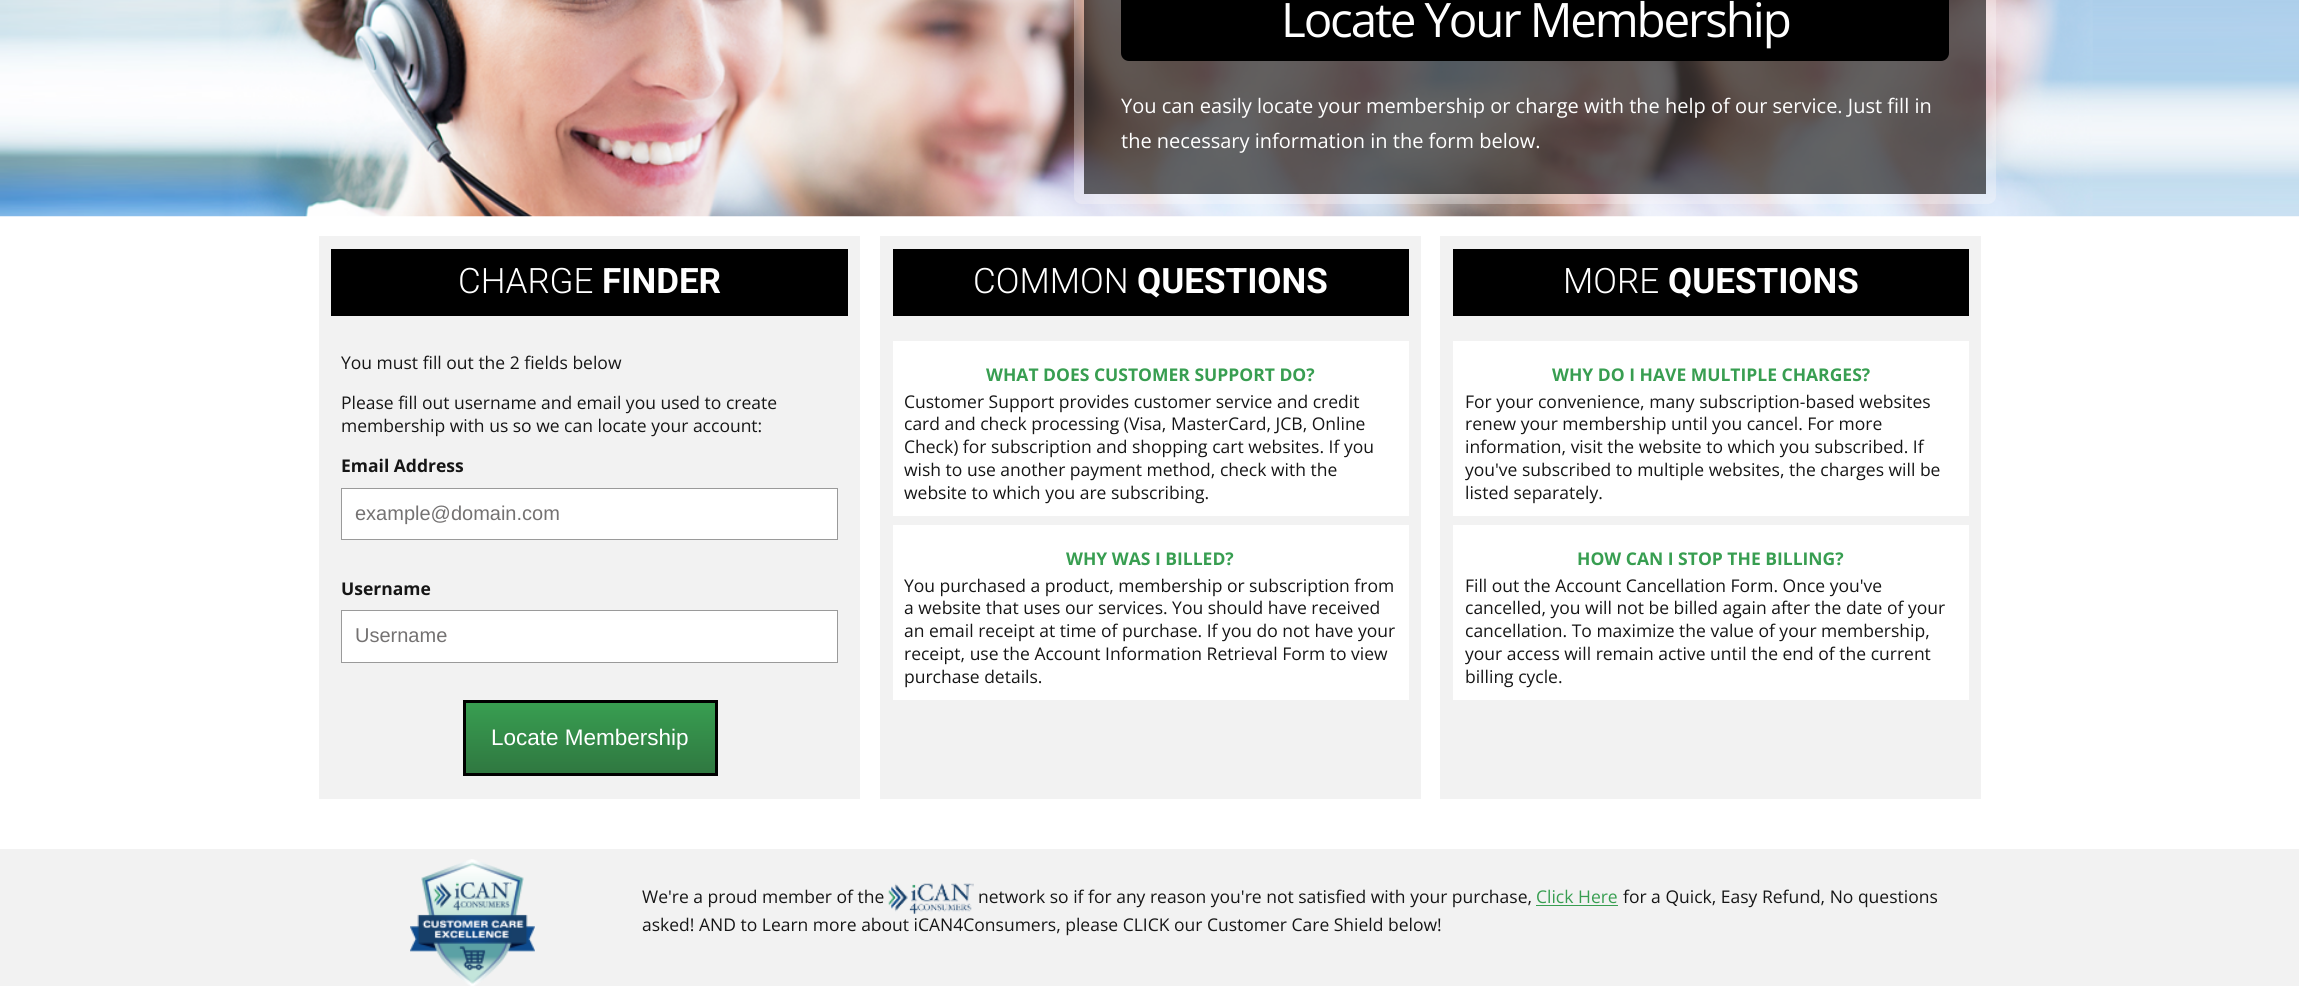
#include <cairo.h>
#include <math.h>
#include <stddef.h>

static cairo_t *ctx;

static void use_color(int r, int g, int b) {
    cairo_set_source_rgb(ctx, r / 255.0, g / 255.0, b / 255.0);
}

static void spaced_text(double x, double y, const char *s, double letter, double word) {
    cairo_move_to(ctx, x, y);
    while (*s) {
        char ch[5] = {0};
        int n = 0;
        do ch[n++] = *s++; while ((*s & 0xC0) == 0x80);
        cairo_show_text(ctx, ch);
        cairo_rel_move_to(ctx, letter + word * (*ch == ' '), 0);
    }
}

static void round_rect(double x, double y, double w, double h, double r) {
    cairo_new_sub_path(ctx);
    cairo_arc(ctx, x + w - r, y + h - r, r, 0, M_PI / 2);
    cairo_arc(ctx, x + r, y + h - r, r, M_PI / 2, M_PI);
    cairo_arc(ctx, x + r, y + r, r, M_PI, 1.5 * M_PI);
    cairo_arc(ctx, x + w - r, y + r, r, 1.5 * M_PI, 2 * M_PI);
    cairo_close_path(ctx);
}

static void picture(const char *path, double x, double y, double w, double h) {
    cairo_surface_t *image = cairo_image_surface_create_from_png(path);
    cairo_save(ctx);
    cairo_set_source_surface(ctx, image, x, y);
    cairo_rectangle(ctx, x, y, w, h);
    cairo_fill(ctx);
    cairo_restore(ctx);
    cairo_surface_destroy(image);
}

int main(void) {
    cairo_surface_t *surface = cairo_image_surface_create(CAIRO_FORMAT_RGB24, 2299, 986);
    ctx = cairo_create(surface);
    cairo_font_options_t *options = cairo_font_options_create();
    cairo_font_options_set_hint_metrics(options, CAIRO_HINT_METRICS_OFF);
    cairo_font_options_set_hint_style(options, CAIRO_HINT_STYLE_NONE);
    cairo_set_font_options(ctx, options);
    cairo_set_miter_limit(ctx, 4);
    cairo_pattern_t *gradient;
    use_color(255, 255, 255);
    cairo_paint(ctx);
    picture("img1.png", 0, 0, 2299, 217);
    cairo_set_source_rgba(ctx, 0.98, 0.969, 0.969, 0.32);
    round_rect(1074, -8, 922, 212, 8);
    cairo_fill(ctx);
    cairo_set_source_rgba(ctx, 0, 0, 0, 0.6);
    cairo_rectangle(ctx, 1084, 0, 902, 194);
    cairo_fill(ctx);
    use_color(0, 0, 0);
    round_rect(1121, -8, 828, 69, 8);
    cairo_fill(ctx);
    cairo_select_font_face(ctx, "Open Sans", CAIRO_FONT_SLANT_NORMAL, CAIRO_FONT_WEIGHT_NORMAL);
    cairo_set_font_size(ctx, 47.5);
    use_color(255, 255, 255);
    spaced_text(1281, 37, "Locate Your Membership", -2.15, 0);
    cairo_set_font_size(ctx, 20);
    cairo_move_to(ctx, 1121, 113);
    cairo_show_text(ctx, "You can easily locate your membership or charge with the help of our service. Just fill in");
    cairo_move_to(ctx, 1121, 148);
    cairo_show_text(ctx, "the necessary information in the form below.");
    use_color(242, 242, 242);
    cairo_rectangle(ctx, 319, 236, 541, 563);
    cairo_fill(ctx);
    use_color(0, 0, 0);
    cairo_rectangle(ctx, 331, 249, 517, 67);
    cairo_fill(ctx);
    cairo_select_font_face(ctx, "Roboto Light", CAIRO_FONT_SLANT_NORMAL, CAIRO_FONT_WEIGHT_NORMAL);
    cairo_set_font_size(ctx, 35);
    use_color(255, 255, 255);
    cairo_move_to(ctx, 458, 293);
    cairo_show_text(ctx, "CHARGE");
    cairo_select_font_face(ctx, "Roboto", CAIRO_FONT_SLANT_NORMAL, CAIRO_FONT_WEIGHT_BOLD);
    cairo_move_to(ctx, 602, 293);
    cairo_show_text(ctx, "FINDER");
    cairo_select_font_face(ctx, "Open Sans", CAIRO_FONT_SLANT_NORMAL, CAIRO_FONT_WEIGHT_NORMAL);
    cairo_set_font_size(ctx, 17.5);
    use_color(22, 22, 22);
    cairo_move_to(ctx, 341, 369);
    cairo_show_text(ctx, "You must fill out the 2 fields below");
    cairo_move_to(ctx, 341, 409);
    cairo_show_text(ctx, "Please fill out username and email you used to create");
    cairo_move_to(ctx, 341, 432);
    cairo_show_text(ctx, "membership with us so we can locate your account:");
    cairo_select_font_face(ctx, "Open Sans", CAIRO_FONT_SLANT_NORMAL, CAIRO_FONT_WEIGHT_BOLD);
    cairo_move_to(ctx, 341, 472);
    cairo_show_text(ctx, "Email Address");
    use_color(255, 255, 255);
    cairo_rectangle(ctx, 341.5, 488.5, 496, 51);
    cairo_fill_preserve(ctx);
    use_color(154, 154, 154);
    cairo_set_line_width(ctx, 1);
    cairo_stroke(ctx);
    cairo_select_font_face(ctx, "Liberation Sans", CAIRO_FONT_SLANT_NORMAL, CAIRO_FONT_WEIGHT_NORMAL);
    cairo_set_font_size(ctx, 20);
    use_color(116, 114, 114);
    cairo_move_to(ctx, 355, 520);
    cairo_show_text(ctx, "example@domain.com");
    cairo_select_font_face(ctx, "Open Sans", CAIRO_FONT_SLANT_NORMAL, CAIRO_FONT_WEIGHT_BOLD);
    cairo_set_font_size(ctx, 17.5);
    use_color(22, 22, 22);
    cairo_move_to(ctx, 341, 595);
    cairo_show_text(ctx, "Username");
    use_color(255, 255, 255);
    cairo_rectangle(ctx, 341.5, 610.5, 496, 52);
    cairo_fill_preserve(ctx);
    use_color(154, 154, 154);
    cairo_stroke(ctx);
    cairo_select_font_face(ctx, "Liberation Sans", CAIRO_FONT_SLANT_NORMAL, CAIRO_FONT_WEIGHT_NORMAL);
    cairo_set_font_size(ctx, 20);
    use_color(116, 114, 114);
    cairo_move_to(ctx, 355, 642);
    cairo_show_text(ctx, "Username");
    gradient = cairo_pattern_create_linear(590, 774, 590, 703);
    cairo_pattern_add_color_stop_rgba(gradient, 0, 0.184, 0.467, 0.251, 1);
    cairo_pattern_add_color_stop_rgba(gradient, 1, 0.22, 0.62, 0.318, 1);
    cairo_set_source(ctx, gradient);
    cairo_pattern_destroy(gradient);
    cairo_rectangle(ctx, 466, 703, 249, 70);
    cairo_fill(ctx);
    cairo_rectangle(ctx, 464.5, 701.5, 252, 73);
    use_color(0, 0, 0);
    cairo_set_line_width(ctx, 3);
    cairo_stroke(ctx);
    cairo_set_font_size(ctx, 22.5);
    use_color(255, 255, 255);
    cairo_move_to(ctx, 491, 745);
    cairo_show_text(ctx, "Locate Membership");
    use_color(242, 242, 242);
    cairo_rectangle(ctx, 880, 236, 541, 563);
    cairo_fill(ctx);
    use_color(0, 0, 0);
    cairo_rectangle(ctx, 893, 249, 516, 67);
    cairo_fill(ctx);
    cairo_select_font_face(ctx, "Roboto Light", CAIRO_FONT_SLANT_NORMAL, CAIRO_FONT_WEIGHT_NORMAL);
    cairo_set_font_size(ctx, 35);
    use_color(255, 255, 255);
    cairo_move_to(ctx, 973, 293);
    cairo_show_text(ctx, "COMMON");
    cairo_select_font_face(ctx, "Roboto", CAIRO_FONT_SLANT_NORMAL, CAIRO_FONT_WEIGHT_BOLD);
    cairo_move_to(ctx, 1137, 293);
    cairo_show_text(ctx, "QUESTIONS");
    cairo_rectangle(ctx, 893, 341, 516, 175);
    cairo_fill(ctx);
    cairo_select_font_face(ctx, "Open Sans", CAIRO_FONT_SLANT_NORMAL, CAIRO_FONT_WEIGHT_BOLD);
    cairo_set_font_size(ctx, 17.5);
    use_color(56, 158, 81);
    cairo_move_to(ctx, 986, 381);
    cairo_show_text(ctx, "WHAT DOES CUSTOMER SUPPORT DO?");
    cairo_select_font_face(ctx, "Open Sans", CAIRO_FONT_SLANT_NORMAL, CAIRO_FONT_WEIGHT_NORMAL);
    use_color(22, 22, 22);
    cairo_move_to(ctx, 904, 408);
    cairo_show_text(ctx, "Customer Support provides customer service and credit");
    cairo_move_to(ctx, 904, 430);
    cairo_show_text(ctx, "card and check processing (Visa, MasterCard, JCB, Online");
    cairo_move_to(ctx, 904, 453);
    cairo_show_text(ctx, "Check) for subscription and shopping cart websites. If you");
    cairo_move_to(ctx, 904, 476);
    cairo_show_text(ctx, "wish to use another payment method, check with the");
    cairo_move_to(ctx, 904, 499);
    cairo_show_text(ctx, "website to which you are subscribing.");
    use_color(255, 255, 255);
    cairo_rectangle(ctx, 893, 525, 516, 175);
    cairo_fill(ctx);
    cairo_select_font_face(ctx, "Open Sans", CAIRO_FONT_SLANT_NORMAL, CAIRO_FONT_WEIGHT_BOLD);
    use_color(56, 158, 81);
    cairo_move_to(ctx, 1066, 565);
    cairo_show_text(ctx, "WHY WAS I BILLED?");
    cairo_select_font_face(ctx, "Open Sans", CAIRO_FONT_SLANT_NORMAL, CAIRO_FONT_WEIGHT_NORMAL);
    use_color(22, 22, 22);
    cairo_move_to(ctx, 904, 592);
    cairo_show_text(ctx, "You purchased a product, membership or subscription from");
    cairo_move_to(ctx, 904, 614);
    cairo_show_text(ctx, "a website that uses our services. You should have received");
    cairo_move_to(ctx, 904, 637);
    cairo_show_text(ctx, "an email receipt at time of purchase. If you do not have your");
    cairo_move_to(ctx, 904, 660);
    cairo_show_text(ctx, "receipt, use the Account Information Retrieval Form to view");
    cairo_move_to(ctx, 904, 683);
    cairo_show_text(ctx, "purchase details.");
    use_color(242, 242, 242);
    cairo_rectangle(ctx, 1440, 236, 541, 563);
    cairo_fill(ctx);
    use_color(0, 0, 0);
    cairo_rectangle(ctx, 1453, 249, 516, 67);
    cairo_fill(ctx);
    cairo_select_font_face(ctx, "Roboto Light", CAIRO_FONT_SLANT_NORMAL, CAIRO_FONT_WEIGHT_NORMAL);
    cairo_set_font_size(ctx, 35);
    use_color(255, 255, 255);
    cairo_move_to(ctx, 1563, 293);
    cairo_show_text(ctx, "MORE");
    cairo_select_font_face(ctx, "Roboto", CAIRO_FONT_SLANT_NORMAL, CAIRO_FONT_WEIGHT_BOLD);
    cairo_move_to(ctx, 1668, 293);
    cairo_show_text(ctx, "QUESTIONS");
    cairo_rectangle(ctx, 1453, 341, 516, 175);
    cairo_fill(ctx);
    cairo_select_font_face(ctx, "Open Sans", CAIRO_FONT_SLANT_NORMAL, CAIRO_FONT_WEIGHT_BOLD);
    cairo_set_font_size(ctx, 17.5);
    use_color(56, 158, 81);
    cairo_move_to(ctx, 1552, 381);
    cairo_show_text(ctx, "WHY DO I HAVE MULTIPLE CHARGES?");
    cairo_select_font_face(ctx, "Open Sans", CAIRO_FONT_SLANT_NORMAL, CAIRO_FONT_WEIGHT_NORMAL);
    use_color(22, 22, 22);
    cairo_move_to(ctx, 1465, 408);
    cairo_show_text(ctx, "For your convenience, many subscription-based websites");
    cairo_move_to(ctx, 1465, 430);
    cairo_show_text(ctx, "renew your membership until you cancel. For more");
    cairo_move_to(ctx, 1465, 453);
    cairo_show_text(ctx, "information, visit the website to which you subscribed. If");
    cairo_move_to(ctx, 1465, 476);
    cairo_show_text(ctx, "you've subscribed to multiple websites, the charges will be");
    cairo_move_to(ctx, 1465, 499);
    cairo_show_text(ctx, "listed separately.");
    use_color(255, 255, 255);
    cairo_rectangle(ctx, 1453, 525, 516, 175);
    cairo_fill(ctx);
    cairo_select_font_face(ctx, "Open Sans", CAIRO_FONT_SLANT_NORMAL, CAIRO_FONT_WEIGHT_BOLD);
    use_color(56, 158, 81);
    cairo_move_to(ctx, 1577, 565);
    cairo_show_text(ctx, "HOW CAN I STOP THE BILLING?");
    cairo_select_font_face(ctx, "Open Sans", CAIRO_FONT_SLANT_NORMAL, CAIRO_FONT_WEIGHT_NORMAL);
    use_color(22, 22, 22);
    cairo_move_to(ctx, 1465, 592);
    cairo_show_text(ctx, "Fill out the Account Cancellation Form. Once you've");
    cairo_move_to(ctx, 1465, 614);
    cairo_show_text(ctx, "cancelled, you will not be billed again after the date of your");
    cairo_move_to(ctx, 1465, 637);
    cairo_show_text(ctx, "cancellation. To maximize the value of your membership,");
    cairo_move_to(ctx, 1465, 660);
    cairo_show_text(ctx, "your access will remain active until the end of the current");
    cairo_move_to(ctx, 1465, 683);
    cairo_show_text(ctx, "billing cycle.");
    use_color(242, 242, 242);
    cairo_rectangle(ctx, 0, 849, 2299, 137);
    cairo_fill(ctx);
    picture("img2.png", 410, 859, 125, 127);
    use_color(22, 22, 22);
    cairo_move_to(ctx, 642, 903);
    cairo_show_text(ctx, "We're a proud member of the");
    picture("img3.png", 888, 883, 86, 31);
    cairo_move_to(ctx, 978, 903);
    cairo_show_text(ctx, "network so if for any reason you're not satisfied with your purchase,");
    use_color(56, 158, 81);
    cairo_move_to(ctx, 1536, 903);
    cairo_show_text(ctx, "Click Here");
    cairo_rectangle(ctx, 1536, 905, 82, 1);
    cairo_fill(ctx);
    use_color(22, 22, 22);
    cairo_move_to(ctx, 1623, 903);
    cairo_show_text(ctx, "for a Quick, Easy Refund, No questions");
    cairo_move_to(ctx, 642, 931);
    cairo_show_text(ctx, "asked! AND to Learn more about iCAN4Consumers, please CLICK our Customer Care Shield below!");
    cairo_surface_write_to_png(surface, "result.png");
    cairo_font_options_destroy(options);
    cairo_destroy(ctx);
    cairo_surface_destroy(surface);
    return 0;
}
